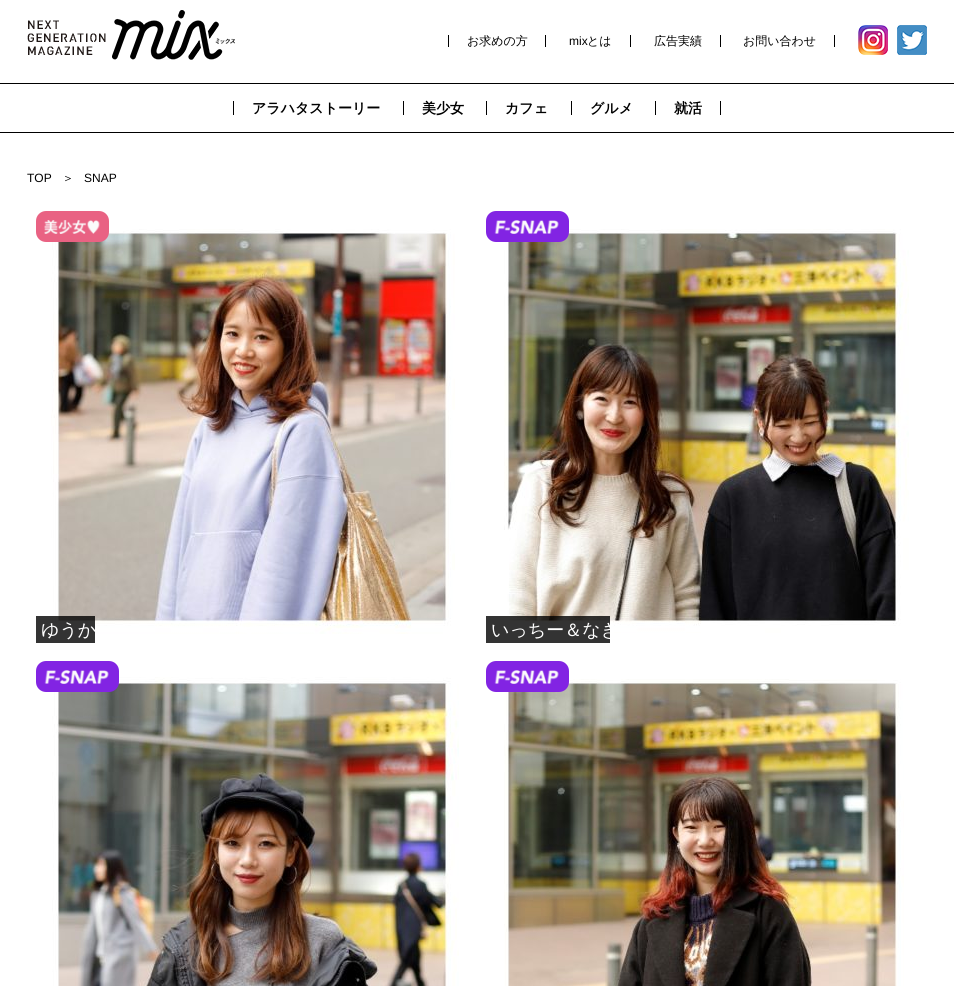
#include <cairo.h>
#include <math.h>
#include <stddef.h>

static cairo_t *ctx;

static void use_color(int r, int g, int b) {
    cairo_set_source_rgb(ctx, r / 255.0, g / 255.0, b / 255.0);
}

static void round_rect(double x, double y, double w, double h, double r) {
    cairo_new_sub_path(ctx);
    cairo_arc(ctx, x + w - r, y + h - r, r, 0, M_PI / 2);
    cairo_arc(ctx, x + r, y + h - r, r, M_PI / 2, M_PI);
    cairo_arc(ctx, x + r, y + r, r, M_PI, 1.5 * M_PI);
    cairo_arc(ctx, x + w - r, y + r, r, 1.5 * M_PI, 2 * M_PI);
    cairo_close_path(ctx);
}

static void picture(const char *path, double x, double y, double w, double h) {
    cairo_surface_t *image = cairo_image_surface_create_from_png(path);
    cairo_save(ctx);
    cairo_set_source_surface(ctx, image, x, y);
    cairo_rectangle(ctx, x, y, w, h);
    cairo_fill(ctx);
    cairo_restore(ctx);
    cairo_surface_destroy(image);
}

int main(void) {
    cairo_surface_t *surface = cairo_image_surface_create(CAIRO_FORMAT_RGB24, 954, 986);
    ctx = cairo_create(surface);
    cairo_font_options_t *options = cairo_font_options_create();
    cairo_font_options_set_hint_metrics(options, CAIRO_HINT_METRICS_OFF);
    cairo_font_options_set_hint_style(options, CAIRO_HINT_STYLE_NONE);
    cairo_set_font_options(ctx, options);
    cairo_set_miter_limit(ctx, 4);
    use_color(255, 255, 255);
    cairo_paint(ctx);
    use_color(0, 0, 0);
    cairo_rectangle(ctx, 0, 83, 954, 1);
    cairo_fill(ctx);
    picture("img1.png", 27, 10, 208, 50);
    cairo_rectangle(ctx, 545, 35, 1, 12);
    cairo_fill(ctx);
    cairo_rectangle(ctx, 448, 35, 1, 12);
    cairo_fill(ctx);
    cairo_select_font_face(ctx, "WenQuanYi Zen Hei Medium", CAIRO_FONT_SLANT_NORMAL, CAIRO_FONT_WEIGHT_NORMAL);
    cairo_set_font_size(ctx, 12);
    cairo_move_to(ctx, 467, 45);
    cairo_show_text(ctx, "お求めの方");
    cairo_rectangle(ctx, 630, 35, 1, 12);
    cairo_fill(ctx);
    cairo_select_font_face(ctx, "Liberation Sans", CAIRO_FONT_SLANT_NORMAL, CAIRO_FONT_WEIGHT_NORMAL);
    cairo_move_to(ctx, 569, 45);
    cairo_show_text(ctx, "mix");
    cairo_select_font_face(ctx, "WenQuanYi Zen Hei Medium", CAIRO_FONT_SLANT_NORMAL, CAIRO_FONT_WEIGHT_NORMAL);
    cairo_move_to(ctx, 587, 45);
    cairo_show_text(ctx, "とは");
    cairo_rectangle(ctx, 720, 35, 1, 12);
    cairo_fill(ctx);
    cairo_move_to(ctx, 654, 45);
    cairo_show_text(ctx, "広告実績");
    cairo_rectangle(ctx, 834, 35, 1, 12);
    cairo_fill(ctx);
    cairo_move_to(ctx, 743, 45);
    cairo_show_text(ctx, "お問い合わせ");
    picture("img2.png", 858, 25, 30, 30);
    picture("img3.png", 897, 25, 30, 30);
    cairo_rectangle(ctx, 0, 132, 954, 1);
    cairo_fill(ctx);
    cairo_rectangle(ctx, 233, 101, 1, 14);
    cairo_fill(ctx);
    cairo_select_font_face(ctx, "WenQuanYi Zen Hei", CAIRO_FONT_SLANT_NORMAL, CAIRO_FONT_WEIGHT_BOLD);
    cairo_set_font_size(ctx, 14);
    cairo_move_to(ctx, 252, 113);
    cairo_show_text(ctx, "アラハタストーリー");
    cairo_rectangle(ctx, 403, 101, 1, 14);
    cairo_fill(ctx);
    cairo_move_to(ctx, 422, 113);
    cairo_show_text(ctx, "美少女");
    cairo_rectangle(ctx, 486, 101, 1, 14);
    cairo_fill(ctx);
    cairo_move_to(ctx, 505, 113);
    cairo_show_text(ctx, "カフェ");
    cairo_rectangle(ctx, 571, 101, 1, 14);
    cairo_fill(ctx);
    cairo_move_to(ctx, 590, 113);
    cairo_show_text(ctx, "グルメ");
    cairo_rectangle(ctx, 720, 101, 1, 14);
    cairo_fill(ctx);
    cairo_rectangle(ctx, 655, 101, 1, 14);
    cairo_fill(ctx);
    cairo_move_to(ctx, 674, 113);
    cairo_show_text(ctx, "就活");
    cairo_select_font_face(ctx, "Liberation Sans", CAIRO_FONT_SLANT_NORMAL, CAIRO_FONT_WEIGHT_NORMAL);
    cairo_set_font_size(ctx, 12);
    cairo_move_to(ctx, 27, 182);
    cairo_show_text(ctx, "TOP");
    cairo_select_font_face(ctx, "WenQuanYi Zen Hei Medium", CAIRO_FONT_SLANT_NORMAL, CAIRO_FONT_WEIGHT_NORMAL);
    cairo_move_to(ctx, 62, 182);
    cairo_show_text(ctx, "＞");
    cairo_select_font_face(ctx, "Liberation Sans", CAIRO_FONT_SLANT_NORMAL, CAIRO_FONT_WEIGHT_NORMAL);
    cairo_move_to(ctx, 84, 182);
    cairo_show_text(ctx, "SNAP");
    picture("img5.png", 51, 229, 404, 405);
    use_color(233, 98, 131);
    round_rect(36, 211, 73, 31, 10);
    cairo_fill(ctx);
    picture("img4.png", 44, 220, 56, 14);
    cairo_set_source_rgba(ctx, 0, 0, 0, 0.8);
    cairo_rectangle(ctx, 36, 616, 59, 27);
    cairo_fill(ctx);
    cairo_select_font_face(ctx, "WenQuanYi Zen Hei Medium", CAIRO_FONT_SLANT_NORMAL, CAIRO_FONT_WEIGHT_NORMAL);
    cairo_set_font_size(ctx, 18);
    use_color(255, 255, 255);
    cairo_move_to(ctx, 41, 636);
    cairo_show_text(ctx, "ゆうか");
    picture("img7.png", 504, 229, 405, 404);
    use_color(130, 36, 227);
    round_rect(486, 211, 83, 31, 10);
    cairo_fill(ctx);
    picture("img6.png", 494, 220, 65, 14);
    cairo_set_source_rgba(ctx, 0, 0, 0, 0.8);
    cairo_rectangle(ctx, 486, 616, 124, 27);
    cairo_fill(ctx);
    use_color(255, 255, 255);
    cairo_move_to(ctx, 491, 636);
    cairo_show_text(ctx, "いっちー＆なぎ");
    picture("img9.png", 52, 677, 407, 309);
    use_color(130, 36, 227);
    round_rect(36, 661, 83, 31, 10);
    cairo_fill(ctx);
    picture("img8.png", 44, 670, 65, 14);
    picture("img10.png", 504, 679, 400, 307);
    round_rect(486, 661, 83, 31, 10);
    cairo_fill(ctx);
    picture("img6.png", 494, 670, 65, 14);
    cairo_surface_write_to_png(surface, "result.png");
    cairo_font_options_destroy(options);
    cairo_destroy(ctx);
    cairo_surface_destroy(surface);
    return 0;
}
